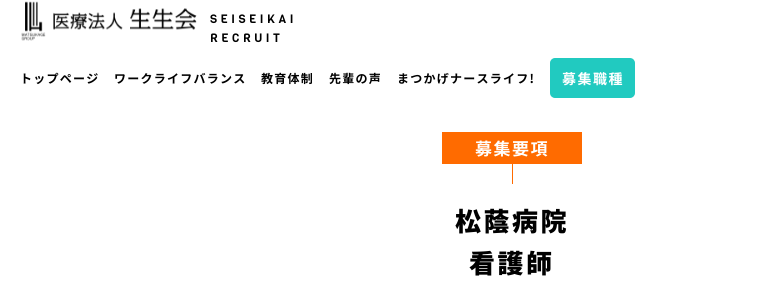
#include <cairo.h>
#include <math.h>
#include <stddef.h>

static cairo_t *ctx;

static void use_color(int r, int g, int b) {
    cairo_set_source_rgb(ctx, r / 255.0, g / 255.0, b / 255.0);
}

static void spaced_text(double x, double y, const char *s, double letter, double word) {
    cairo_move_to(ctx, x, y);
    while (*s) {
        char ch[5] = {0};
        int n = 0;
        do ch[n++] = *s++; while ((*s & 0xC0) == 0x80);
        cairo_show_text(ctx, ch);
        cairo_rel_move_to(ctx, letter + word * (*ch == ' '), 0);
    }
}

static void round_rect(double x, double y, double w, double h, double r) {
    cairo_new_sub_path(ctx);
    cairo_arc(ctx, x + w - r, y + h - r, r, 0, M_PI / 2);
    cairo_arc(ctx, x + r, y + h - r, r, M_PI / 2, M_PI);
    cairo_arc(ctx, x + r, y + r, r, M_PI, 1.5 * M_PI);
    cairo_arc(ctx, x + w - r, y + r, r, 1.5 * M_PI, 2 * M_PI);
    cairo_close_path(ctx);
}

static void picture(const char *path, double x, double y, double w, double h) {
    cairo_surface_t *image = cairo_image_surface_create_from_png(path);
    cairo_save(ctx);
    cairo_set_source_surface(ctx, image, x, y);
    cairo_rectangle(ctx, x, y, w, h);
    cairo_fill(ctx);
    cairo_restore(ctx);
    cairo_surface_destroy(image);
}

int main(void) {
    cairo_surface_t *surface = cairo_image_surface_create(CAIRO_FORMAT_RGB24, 776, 303);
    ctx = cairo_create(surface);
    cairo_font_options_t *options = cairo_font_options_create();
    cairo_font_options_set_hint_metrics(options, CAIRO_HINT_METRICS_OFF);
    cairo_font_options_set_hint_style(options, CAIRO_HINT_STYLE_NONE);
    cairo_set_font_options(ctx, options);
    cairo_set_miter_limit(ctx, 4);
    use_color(255, 255, 255);
    cairo_paint(ctx);
    picture("img1.png", 21, 1, 176, 40);
    cairo_select_font_face(ctx, "Viga", CAIRO_FONT_SLANT_NORMAL, CAIRO_FONT_WEIGHT_NORMAL);
    cairo_set_font_size(ctx, 12);
    use_color(0, 0, 0);
    spaced_text(210, 23, "SEISEIKAI", 3.5, 0);
    spaced_text(210, 42, "RECRUIT", 3.5, 0);
    cairo_select_font_face(ctx, "Noto Sans JP", CAIRO_FONT_SLANT_NORMAL, CAIRO_FONT_WEIGHT_BOLD);
    spaced_text(20, 83, "トップページ", 1.25, 0);
    spaced_text(114, 83, "ワークライフバランス", 1.25, 0);
    spaced_text(261, 83, "教育体制", 1.25, 0);
    spaced_text(329, 83, "先輩の声", 1.25, 0);
    spaced_text(397, 83, "まつかげナースライフ!", 1.25, 0);
    use_color(33, 202, 192);
    round_rect(551, 59, 83, 38, 4);
    cairo_fill_preserve(ctx);
    cairo_stroke(ctx);
    cairo_set_font_size(ctx, 14);
    use_color(255, 255, 255);
    spaced_text(562, 84, "募集職種", 1.5, 0);
    use_color(255, 107, 0);
    cairo_rectangle(ctx, 442, 132, 140, 32);
    cairo_fill(ctx);
    cairo_set_font_size(ctx, 17);
    use_color(255, 255, 255);
    spaced_text(475, 155, "募集要項", 1.5, 0);
    use_color(255, 107, 0);
    cairo_rectangle(ctx, 512, 164, 1, 20);
    cairo_fill(ctx);
    cairo_select_font_face(ctx, "Noto Sans JP Black", CAIRO_FONT_SLANT_NORMAL, CAIRO_FONT_WEIGHT_NORMAL);
    cairo_set_font_size(ctx, 26);
    use_color(0, 0, 0);
    spaced_text(455, 231, "松蔭病院", 2.5, 0);
    spaced_text(469, 273, "看護師", 2.5, 0);
    cairo_surface_write_to_png(surface, "result.png");
    cairo_font_options_destroy(options);
    cairo_destroy(ctx);
    cairo_surface_destroy(surface);
    return 0;
}
